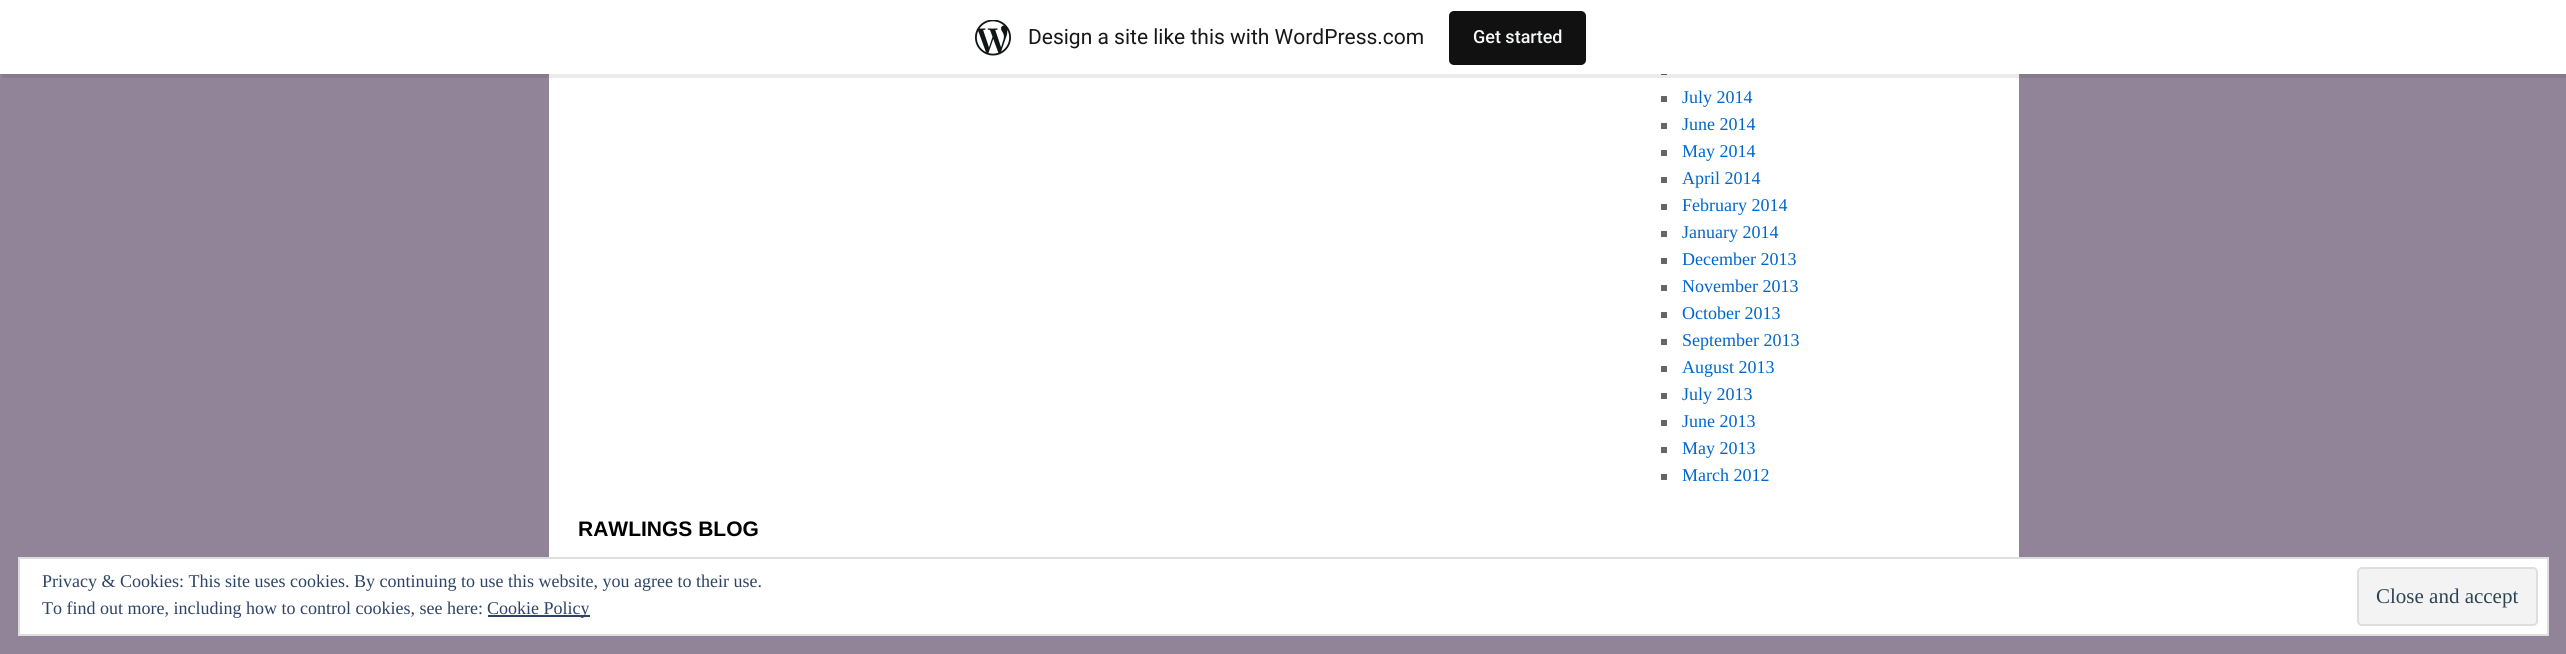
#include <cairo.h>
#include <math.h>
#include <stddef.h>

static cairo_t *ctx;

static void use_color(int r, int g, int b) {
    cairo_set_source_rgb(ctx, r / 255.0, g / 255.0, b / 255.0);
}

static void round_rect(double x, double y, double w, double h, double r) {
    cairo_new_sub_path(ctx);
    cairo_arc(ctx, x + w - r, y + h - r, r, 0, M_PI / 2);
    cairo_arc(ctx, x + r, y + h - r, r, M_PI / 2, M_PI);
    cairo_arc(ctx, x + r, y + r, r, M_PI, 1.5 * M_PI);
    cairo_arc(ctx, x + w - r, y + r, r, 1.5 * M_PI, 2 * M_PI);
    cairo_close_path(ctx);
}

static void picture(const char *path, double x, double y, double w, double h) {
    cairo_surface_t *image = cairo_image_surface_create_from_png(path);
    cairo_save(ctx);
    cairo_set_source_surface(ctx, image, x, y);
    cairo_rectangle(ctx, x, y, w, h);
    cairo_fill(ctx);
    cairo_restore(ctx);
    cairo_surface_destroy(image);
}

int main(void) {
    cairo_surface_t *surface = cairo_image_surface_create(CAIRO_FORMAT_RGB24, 2566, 654);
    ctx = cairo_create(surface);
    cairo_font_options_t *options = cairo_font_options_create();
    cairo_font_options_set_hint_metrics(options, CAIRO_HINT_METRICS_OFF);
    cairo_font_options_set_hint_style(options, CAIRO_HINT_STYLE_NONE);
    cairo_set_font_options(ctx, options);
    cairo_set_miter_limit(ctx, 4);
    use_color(146, 132, 152);
    cairo_paint(ctx);
    use_color(255, 255, 255);
    cairo_rectangle(ctx, 549, 74, 1470, 483);
    cairo_fill(ctx);
    use_color(102, 102, 102);
    cairo_rectangle(ctx, 1661, 74, 6, 1);
    cairo_fill(ctx);
    cairo_set_source_rgba(ctx, 0, 0, 0, 0.08);
    cairo_new_path(ctx);
    cairo_move_to(ctx, 2, 74);
    cairo_line_to(ctx, 2, 78);
    cairo_line_to(ctx, 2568, 78);
    cairo_line_to(ctx, 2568, 5);
    cairo_line_to(ctx, 2566, 5);
    cairo_line_to(ctx, 2566, 74);
    cairo_close_path(ctx);
    cairo_fill(ctx);
    use_color(255, 255, 255);
    cairo_rectangle(ctx, 0, 0, 2566, 74);
    cairo_fill(ctx);
    picture("img1.png", 975, 20, 36, 36);
    cairo_select_font_face(ctx, "Roboto", CAIRO_FONT_SLANT_NORMAL, CAIRO_FONT_WEIGHT_NORMAL);
    cairo_set_font_size(ctx, 21);
    use_color(23, 23, 23);
    cairo_move_to(ctx, 1028, 44);
    cairo_show_text(ctx, "Design a site like this with WordPress.com");
    use_color(17, 17, 17);
    round_rect(1449, 11, 137, 54, 5);
    cairo_fill(ctx);
    cairo_select_font_face(ctx, "Roboto Medium", CAIRO_FONT_SLANT_NORMAL, CAIRO_FONT_WEIGHT_NORMAL);
    cairo_set_font_size(ctx, 18);
    use_color(246, 247, 247);
    cairo_move_to(ctx, 1473, 43);
    cairo_show_text(ctx, "Get started");
    use_color(102, 102, 102);
    cairo_rectangle(ctx, 1661, 96, 6, 6);
    cairo_fill(ctx);
    cairo_select_font_face(ctx, "Liberation Serif", CAIRO_FONT_SLANT_NORMAL, CAIRO_FONT_WEIGHT_NORMAL);
    use_color(0, 102, 204);
    cairo_move_to(ctx, 1682, 103);
    cairo_show_text(ctx, "July 2014");
    use_color(102, 102, 102);
    cairo_rectangle(ctx, 1661, 123, 6, 6);
    cairo_fill(ctx);
    use_color(0, 102, 204);
    cairo_move_to(ctx, 1682, 130);
    cairo_show_text(ctx, "June 2014");
    use_color(102, 102, 102);
    cairo_rectangle(ctx, 1661, 150, 6, 6);
    cairo_fill(ctx);
    use_color(0, 102, 204);
    cairo_move_to(ctx, 1682, 157);
    cairo_show_text(ctx, "May 2014");
    use_color(102, 102, 102);
    cairo_rectangle(ctx, 1661, 177, 6, 6);
    cairo_fill(ctx);
    use_color(0, 102, 204);
    cairo_move_to(ctx, 1682, 184);
    cairo_show_text(ctx, "April 2014");
    use_color(102, 102, 102);
    cairo_rectangle(ctx, 1661, 204, 6, 6);
    cairo_fill(ctx);
    use_color(0, 102, 204);
    cairo_move_to(ctx, 1682, 211);
    cairo_show_text(ctx, "February 2014");
    use_color(102, 102, 102);
    cairo_rectangle(ctx, 1661, 231, 6, 6);
    cairo_fill(ctx);
    use_color(0, 102, 204);
    cairo_move_to(ctx, 1682, 238);
    cairo_show_text(ctx, "January 2014");
    use_color(102, 102, 102);
    cairo_rectangle(ctx, 1661, 258, 6, 6);
    cairo_fill(ctx);
    use_color(0, 102, 204);
    cairo_move_to(ctx, 1682, 265);
    cairo_show_text(ctx, "December 2013");
    use_color(102, 102, 102);
    cairo_rectangle(ctx, 1661, 285, 6, 6);
    cairo_fill(ctx);
    use_color(0, 102, 204);
    cairo_move_to(ctx, 1682, 292);
    cairo_show_text(ctx, "November 2013");
    use_color(102, 102, 102);
    cairo_rectangle(ctx, 1661, 312, 6, 6);
    cairo_fill(ctx);
    use_color(0, 102, 204);
    cairo_move_to(ctx, 1682, 319);
    cairo_show_text(ctx, "October 2013");
    use_color(102, 102, 102);
    cairo_rectangle(ctx, 1661, 339, 6, 6);
    cairo_fill(ctx);
    use_color(0, 102, 204);
    cairo_move_to(ctx, 1682, 346);
    cairo_show_text(ctx, "September 2013");
    use_color(102, 102, 102);
    cairo_rectangle(ctx, 1661, 366, 6, 6);
    cairo_fill(ctx);
    use_color(0, 102, 204);
    cairo_move_to(ctx, 1682, 373);
    cairo_show_text(ctx, "August 2013");
    use_color(102, 102, 102);
    cairo_rectangle(ctx, 1661, 393, 6, 6);
    cairo_fill(ctx);
    use_color(0, 102, 204);
    cairo_move_to(ctx, 1682, 400);
    cairo_show_text(ctx, "July 2013");
    use_color(102, 102, 102);
    cairo_rectangle(ctx, 1661, 420, 6, 6);
    cairo_fill(ctx);
    use_color(0, 102, 204);
    cairo_move_to(ctx, 1682, 427);
    cairo_show_text(ctx, "June 2013");
    use_color(102, 102, 102);
    cairo_rectangle(ctx, 1661, 447, 6, 6);
    cairo_fill(ctx);
    use_color(0, 102, 204);
    cairo_move_to(ctx, 1682, 454);
    cairo_show_text(ctx, "May 2013");
    use_color(102, 102, 102);
    cairo_rectangle(ctx, 1661, 474, 6, 6);
    cairo_fill(ctx);
    use_color(0, 102, 204);
    cairo_move_to(ctx, 1682, 481);
    cairo_show_text(ctx, "March 2012");
    cairo_select_font_face(ctx, "Liberation Sans", CAIRO_FONT_SLANT_NORMAL, CAIRO_FONT_WEIGHT_BOLD);
    cairo_set_font_size(ctx, 21);
    use_color(0, 0, 0);
    cairo_move_to(ctx, 578, 536);
    cairo_show_text(ctx, "RAWLINGS BLOG");
    use_color(255, 255, 255);
    cairo_rectangle(ctx, 19, 558, 2529, 77);
    cairo_fill_preserve(ctx);
    use_color(222, 222, 222);
    cairo_stroke(ctx);
    cairo_select_font_face(ctx, "Liberation Serif", CAIRO_FONT_SLANT_NORMAL, CAIRO_FONT_WEIGHT_NORMAL);
    cairo_set_font_size(ctx, 18);
    use_color(46, 68, 103);
    cairo_move_to(ctx, 42, 587);
    cairo_show_text(ctx, "Privacy & Cookies: This site uses cookies. By continuing to use this website, you agree to their use.");
    cairo_move_to(ctx, 42, 614);
    cairo_show_text(ctx, "To find out more, including how to control cookies, see here:");
    cairo_rectangle(ctx, 488, 615, 102, 2);
    cairo_fill(ctx);
    cairo_move_to(ctx, 487, 614);
    cairo_show_text(ctx, "Cookie Policy");
    use_color(243, 243, 243);
    round_rect(2358, 568, 179, 57, 4);
    cairo_fill_preserve(ctx);
    use_color(222, 222, 222);
    cairo_stroke(ctx);
    cairo_set_font_size(ctx, 21);
    use_color(46, 68, 83);
    cairo_move_to(ctx, 2376, 603);
    cairo_show_text(ctx, "Close and accept");
    cairo_surface_write_to_png(surface, "result.png");
    cairo_font_options_destroy(options);
    cairo_destroy(ctx);
    cairo_surface_destroy(surface);
    return 0;
}
